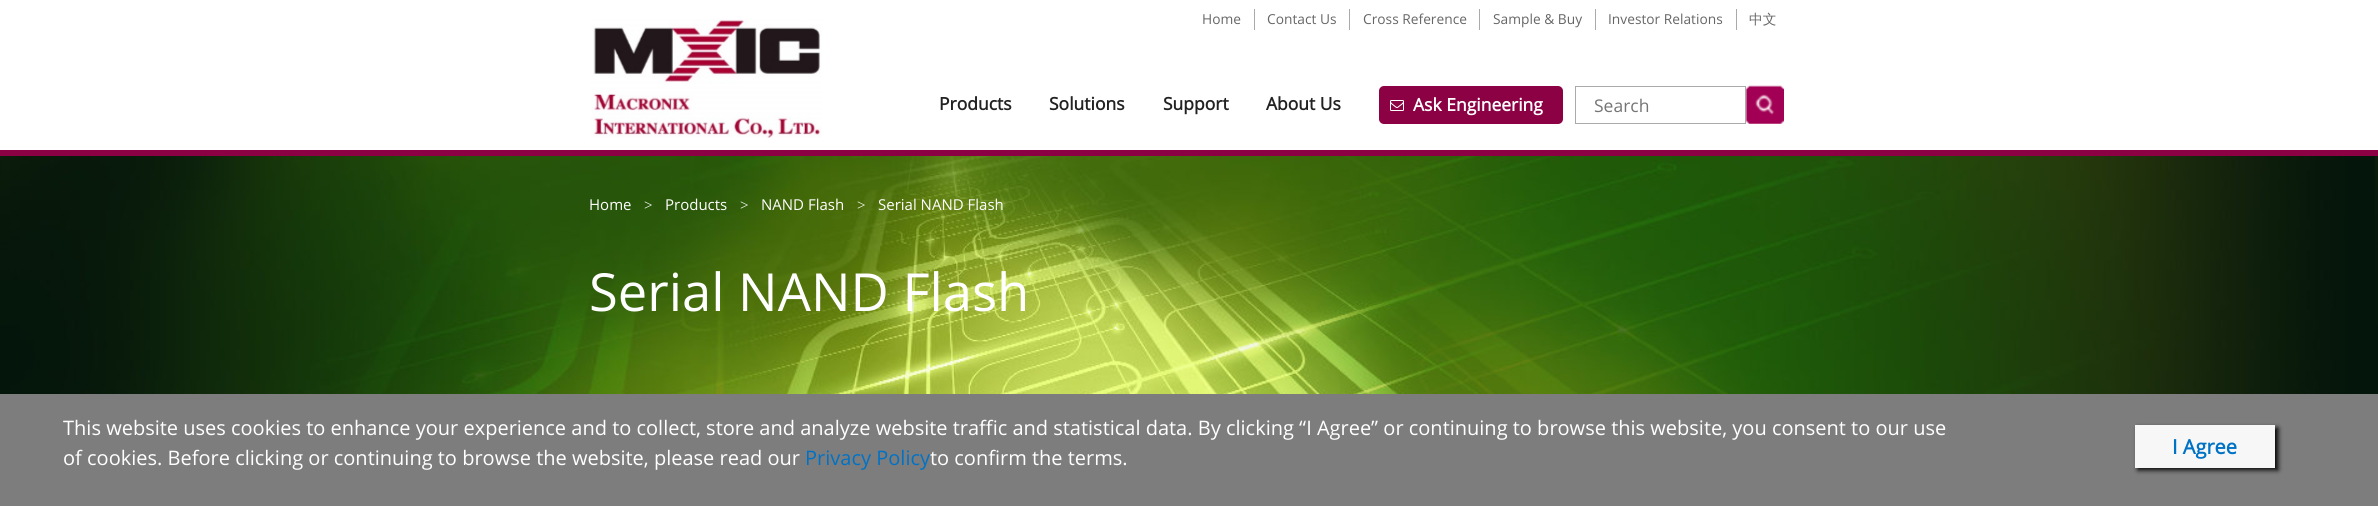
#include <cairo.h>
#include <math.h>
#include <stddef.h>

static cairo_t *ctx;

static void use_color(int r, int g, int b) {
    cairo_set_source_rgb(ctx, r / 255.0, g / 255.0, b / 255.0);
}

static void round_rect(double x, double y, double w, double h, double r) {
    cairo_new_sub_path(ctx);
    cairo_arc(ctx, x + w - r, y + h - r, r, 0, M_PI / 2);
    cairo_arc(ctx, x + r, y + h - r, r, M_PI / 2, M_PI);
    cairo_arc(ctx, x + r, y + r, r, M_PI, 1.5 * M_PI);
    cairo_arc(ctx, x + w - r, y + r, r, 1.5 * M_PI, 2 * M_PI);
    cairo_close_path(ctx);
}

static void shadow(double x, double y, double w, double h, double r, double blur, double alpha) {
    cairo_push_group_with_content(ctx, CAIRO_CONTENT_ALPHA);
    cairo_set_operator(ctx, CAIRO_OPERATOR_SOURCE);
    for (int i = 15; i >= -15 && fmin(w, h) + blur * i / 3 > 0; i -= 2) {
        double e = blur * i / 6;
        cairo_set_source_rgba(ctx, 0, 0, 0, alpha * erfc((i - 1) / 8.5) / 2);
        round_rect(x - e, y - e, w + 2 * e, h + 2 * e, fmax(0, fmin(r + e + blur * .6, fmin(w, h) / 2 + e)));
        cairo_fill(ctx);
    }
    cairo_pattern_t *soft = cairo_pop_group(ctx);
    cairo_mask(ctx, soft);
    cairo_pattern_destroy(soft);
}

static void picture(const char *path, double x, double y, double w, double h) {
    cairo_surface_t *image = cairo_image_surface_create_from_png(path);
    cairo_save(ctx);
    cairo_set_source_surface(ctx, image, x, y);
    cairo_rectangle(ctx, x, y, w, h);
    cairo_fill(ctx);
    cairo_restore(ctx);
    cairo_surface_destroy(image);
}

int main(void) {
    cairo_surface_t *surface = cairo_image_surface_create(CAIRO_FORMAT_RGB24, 2378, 506);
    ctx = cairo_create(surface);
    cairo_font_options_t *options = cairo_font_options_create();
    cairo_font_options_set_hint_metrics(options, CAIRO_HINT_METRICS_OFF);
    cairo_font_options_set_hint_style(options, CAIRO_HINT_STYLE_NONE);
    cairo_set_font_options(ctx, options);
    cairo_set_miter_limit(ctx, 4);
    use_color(255, 255, 255);
    cairo_paint(ctx);
    cairo_select_font_face(ctx, "Open Sans", CAIRO_FONT_SLANT_NORMAL, CAIRO_FONT_WEIGHT_NORMAL);
    cairo_set_font_size(ctx, 13.75);
    use_color(102, 102, 102);
    cairo_move_to(ctx, 1202, 24);
    cairo_show_text(ctx, "Home");
    use_color(170, 170, 170);
    cairo_rectangle(ctx, 1254, 9, 1, 21);
    cairo_fill(ctx);
    use_color(102, 102, 102);
    cairo_move_to(ctx, 1267, 24);
    cairo_show_text(ctx, "Contact Us");
    use_color(170, 170, 170);
    cairo_rectangle(ctx, 1349, 9, 1, 21);
    cairo_fill(ctx);
    use_color(102, 102, 102);
    cairo_move_to(ctx, 1363, 24);
    cairo_show_text(ctx, "Cross Reference");
    use_color(170, 170, 170);
    cairo_rectangle(ctx, 1479, 9, 1, 21);
    cairo_fill(ctx);
    use_color(102, 102, 102);
    cairo_move_to(ctx, 1493, 24);
    cairo_show_text(ctx, "Sample & Buy");
    use_color(170, 170, 170);
    cairo_rectangle(ctx, 1595, 9, 1, 21);
    cairo_fill(ctx);
    use_color(102, 102, 102);
    cairo_move_to(ctx, 1608, 24);
    cairo_show_text(ctx, "Investor Relations");
    use_color(170, 170, 170);
    cairo_rectangle(ctx, 1736, 9, 1, 21);
    cairo_fill(ctx);
    cairo_select_font_face(ctx, "WenQuanYi Zen Hei Medium", CAIRO_FONT_SLANT_NORMAL, CAIRO_FONT_WEIGHT_NORMAL);
    use_color(102, 102, 102);
    cairo_move_to(ctx, 1749, 24);
    cairo_show_text(ctx, "中文");
    use_color(140, 0, 68);
    cairo_rectangle(ctx, 0, 150, 2378, 6);
    cairo_fill(ctx);
    picture("img1.png", 590, 19, 232, 119);
    cairo_select_font_face(ctx, "Open Sans", CAIRO_FONT_SLANT_NORMAL, CAIRO_FONT_WEIGHT_BOLD);
    cairo_set_font_size(ctx, 17.5);
    use_color(34, 34, 34);
    cairo_move_to(ctx, 939, 110);
    cairo_show_text(ctx, "Products");
    cairo_move_to(ctx, 1049, 110);
    cairo_show_text(ctx, "Solutions");
    cairo_move_to(ctx, 1163, 110);
    cairo_show_text(ctx, "Support");
    cairo_move_to(ctx, 1266, 110);
    cairo_show_text(ctx, "About Us");
    use_color(140, 0, 68);
    round_rect(1379, 86, 184, 38, 5);
    cairo_fill(ctx);
    picture("img2.png", 1390, 100, 14, 11);
    use_color(255, 255, 255);
    cairo_move_to(ctx, 1413, 111);
    cairo_show_text(ctx, "Ask Engineering");
    cairo_rectangle(ctx, 1575.5, 86.5, 170, 37);
    use_color(170, 170, 170);
    cairo_set_line_width(ctx, 1);
    cairo_stroke(ctx);
    cairo_select_font_face(ctx, "Open Sans", CAIRO_FONT_SLANT_NORMAL, CAIRO_FONT_WEIGHT_NORMAL);
    use_color(117, 117, 117);
    cairo_move_to(ctx, 1594, 112);
    cairo_show_text(ctx, "Search");
    picture("img3.png", 1746, 85, 38, 39);
    picture("img4.png", 0, 156, 2378, 238);
    cairo_set_font_size(ctx, 15);
    use_color(255, 255, 255);
    cairo_move_to(ctx, 589, 210);
    cairo_show_text(ctx, "Home");
    cairo_select_font_face(ctx, "Liberation Serif", CAIRO_FONT_SLANT_NORMAL, CAIRO_FONT_WEIGHT_NORMAL);
    cairo_move_to(ctx, 644, 210);
    cairo_show_text(ctx, ">");
    cairo_select_font_face(ctx, "Open Sans", CAIRO_FONT_SLANT_NORMAL, CAIRO_FONT_WEIGHT_NORMAL);
    cairo_move_to(ctx, 665, 210);
    cairo_show_text(ctx, "Products");
    cairo_select_font_face(ctx, "Liberation Serif", CAIRO_FONT_SLANT_NORMAL, CAIRO_FONT_WEIGHT_NORMAL);
    cairo_move_to(ctx, 740, 210);
    cairo_show_text(ctx, ">");
    cairo_select_font_face(ctx, "Open Sans", CAIRO_FONT_SLANT_NORMAL, CAIRO_FONT_WEIGHT_NORMAL);
    cairo_move_to(ctx, 761, 210);
    cairo_show_text(ctx, "NAND Flash");
    cairo_select_font_face(ctx, "Liberation Serif", CAIRO_FONT_SLANT_NORMAL, CAIRO_FONT_WEIGHT_NORMAL);
    cairo_move_to(ctx, 857, 210);
    cairo_show_text(ctx, ">");
    cairo_select_font_face(ctx, "Open Sans", CAIRO_FONT_SLANT_NORMAL, CAIRO_FONT_WEIGHT_NORMAL);
    cairo_move_to(ctx, 878, 210);
    cairo_show_text(ctx, "Serial NAND Flash");
    cairo_set_font_size(ctx, 52.5);
    cairo_move_to(ctx, 589, 311);
    cairo_show_text(ctx, "Serial NAND Flash");
    use_color(125, 125, 125);
    cairo_rectangle(ctx, 0, 394, 2378, 112);
    cairo_fill(ctx);
    cairo_set_font_size(ctx, 20);
    use_color(255, 255, 255);
    cairo_move_to(ctx, 63, 435);
    cairo_show_text(ctx, "This website uses cookies to enhance your experience and to collect, store and analyze website traffic and statistical data. By clicking “I Agree” or continuing to browse this website, you consent to our use");
    cairo_move_to(ctx, 63, 465);
    cairo_show_text(ctx, "of cookies. Before clicking or continuing to browse the website, please read our");
    use_color(0, 114, 198);
    cairo_move_to(ctx, 805, 465);
    cairo_show_text(ctx, "Privacy Policy");
    use_color(255, 255, 255);
    cairo_move_to(ctx, 930, 465);
    cairo_show_text(ctx, "to confirm the terms.");
    use_color(0, 0, 0);
    shadow(2138, 428, 140, 42, 0, 2.5, 1);
    use_color(247, 247, 247);
    cairo_rectangle(ctx, 2135, 425, 140, 43);
    cairo_fill(ctx);
    cairo_select_font_face(ctx, "Open Sans", CAIRO_FONT_SLANT_NORMAL, CAIRO_FONT_WEIGHT_BOLD);
    use_color(0, 114, 198);
    cairo_move_to(ctx, 2172, 454);
    cairo_show_text(ctx, "I Agree");
    cairo_surface_write_to_png(surface, "result.png");
    cairo_font_options_destroy(options);
    cairo_destroy(ctx);
    cairo_surface_destroy(surface);
    return 0;
}
